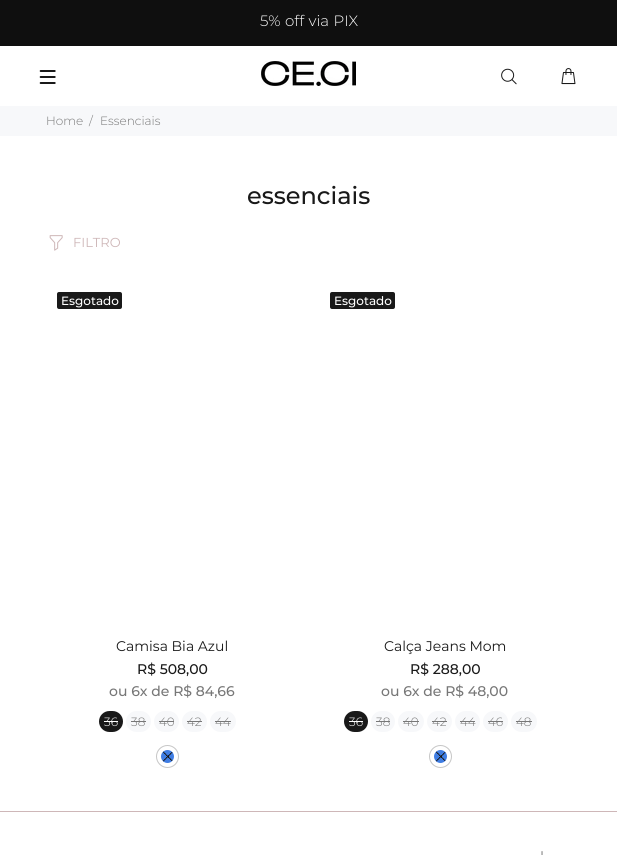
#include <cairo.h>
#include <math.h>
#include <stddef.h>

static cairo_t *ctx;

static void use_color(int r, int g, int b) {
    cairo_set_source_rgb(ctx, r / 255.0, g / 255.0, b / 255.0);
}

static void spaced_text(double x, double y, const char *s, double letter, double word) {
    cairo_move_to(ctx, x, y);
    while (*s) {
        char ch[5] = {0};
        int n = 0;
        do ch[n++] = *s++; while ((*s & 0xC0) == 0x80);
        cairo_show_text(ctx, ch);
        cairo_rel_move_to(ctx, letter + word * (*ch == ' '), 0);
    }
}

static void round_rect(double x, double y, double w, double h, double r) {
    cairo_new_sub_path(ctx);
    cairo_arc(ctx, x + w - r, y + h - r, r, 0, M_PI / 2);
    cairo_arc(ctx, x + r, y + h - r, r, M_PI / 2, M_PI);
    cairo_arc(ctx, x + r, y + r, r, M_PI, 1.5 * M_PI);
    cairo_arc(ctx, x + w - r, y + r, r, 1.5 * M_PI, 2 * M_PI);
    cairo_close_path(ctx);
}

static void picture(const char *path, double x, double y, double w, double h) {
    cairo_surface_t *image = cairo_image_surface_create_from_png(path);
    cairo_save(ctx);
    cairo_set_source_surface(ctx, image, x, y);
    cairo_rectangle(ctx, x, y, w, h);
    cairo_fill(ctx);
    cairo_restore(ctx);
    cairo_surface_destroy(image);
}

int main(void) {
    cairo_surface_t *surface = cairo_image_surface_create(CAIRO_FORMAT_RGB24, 617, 855);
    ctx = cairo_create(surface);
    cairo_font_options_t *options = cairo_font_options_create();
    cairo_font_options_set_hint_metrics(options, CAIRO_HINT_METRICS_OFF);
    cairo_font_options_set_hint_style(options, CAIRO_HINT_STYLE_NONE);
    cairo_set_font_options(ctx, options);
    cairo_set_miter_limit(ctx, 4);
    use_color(255, 255, 255);
    cairo_paint(ctx);
    use_color(15, 15, 15);
    cairo_rectangle(ctx, 0, 0, 617, 46);
    cairo_fill(ctx);
    cairo_select_font_face(ctx, "Montserrat Light", CAIRO_FONT_SLANT_NORMAL, CAIRO_FONT_WEIGHT_NORMAL);
    cairo_set_font_size(ctx, 15);
    use_color(255, 255, 255);
    spaced_text(260, 26, "5% off via PIX", 0, 0.5);
    picture("img1.png", 39, 70, 17, 14);
    picture("img2.png", 261, 61, 95, 25);
    picture("img3.png", 501, 68, 16, 17);
    picture("img4.png", 561, 68, 15, 17);
    use_color(247, 248, 250);
    cairo_rectangle(ctx, 0, 106, 617, 30);
    cairo_fill(ctx);
    cairo_set_font_size(ctx, 12);
    use_color(119, 119, 119);
    cairo_move_to(ctx, 46, 125);
    cairo_show_text(ctx, "Home");
    cairo_move_to(ctx, 89, 125);
    cairo_show_text(ctx, "/");
    cairo_move_to(ctx, 100, 125);
    cairo_show_text(ctx, "Essenciais");
    cairo_select_font_face(ctx, "Montserrat Medium", CAIRO_FONT_SLANT_NORMAL, CAIRO_FONT_WEIGHT_NORMAL);
    cairo_set_font_size(ctx, 24);
    use_color(25, 25, 25);
    cairo_move_to(ctx, 247, 204);
    cairo_show_text(ctx, "essenciais");
    picture("img5.png", 49, 235, 14, 16);
    cairo_select_font_face(ctx, "Montserrat Thin", CAIRO_FONT_SLANT_NORMAL, CAIRO_FONT_WEIGHT_NORMAL);
    cairo_set_font_size(ctx, 13);
    use_color(206, 183, 184);
    cairo_move_to(ctx, 73, 247);
    cairo_show_text(ctx, "FILTRO");
    use_color(25, 25, 25);
    round_rect(57, 292, 65, 17, 2);
    cairo_fill(ctx);
    cairo_select_font_face(ctx, "Montserrat Medium", CAIRO_FONT_SLANT_NORMAL, CAIRO_FONT_WEIGHT_NORMAL);
    cairo_set_font_size(ctx, 12);
    use_color(255, 255, 255);
    cairo_move_to(ctx, 61, 305);
    cairo_show_text(ctx, "Esgotado");
    cairo_select_font_face(ctx, "Montserrat Thin", CAIRO_FONT_SLANT_NORMAL, CAIRO_FONT_WEIGHT_NORMAL);
    cairo_set_font_size(ctx, 14);
    use_color(25, 25, 25);
    cairo_move_to(ctx, 116, 651);
    cairo_show_text(ctx, "Camisa Bia Azul");
    cairo_select_font_face(ctx, "Montserrat Medium", CAIRO_FONT_SLANT_NORMAL, CAIRO_FONT_WEIGHT_NORMAL);
    cairo_move_to(ctx, 137, 674);
    cairo_show_text(ctx, "R$ 508,00");
    use_color(119, 119, 119);
    cairo_move_to(ctx, 109, 696);
    cairo_show_text(ctx, "ou 6x de R$ 84,66");
    use_color(25, 25, 25);
    round_rect(99, 711, 24, 21, 10.5);
    cairo_fill(ctx);
    cairo_select_font_face(ctx, "Montserrat Light", CAIRO_FONT_SLANT_NORMAL, CAIRO_FONT_WEIGHT_NORMAL);
    cairo_set_font_size(ctx, 12);
    use_color(255, 255, 255);
    cairo_move_to(ctx, 104, 726);
    cairo_show_text(ctx, "36");
    cairo_rectangle(ctx, 104, 721, 14, 1);
    cairo_fill(ctx);
    use_color(247, 248, 250);
    round_rect(126, 711, 25, 21, 10.5);
    cairo_fill(ctx);
    use_color(119, 119, 119);
    cairo_move_to(ctx, 131, 726);
    cairo_show_text(ctx, "38");
    cairo_rectangle(ctx, 131, 721, 15, 1);
    cairo_fill(ctx);
    use_color(247, 248, 250);
    round_rect(154, 711, 25, 21, 10.5);
    cairo_fill(ctx);
    use_color(119, 119, 119);
    cairo_move_to(ctx, 159, 726);
    cairo_show_text(ctx, "40");
    cairo_rectangle(ctx, 159, 721, 15, 1);
    cairo_fill(ctx);
    use_color(247, 248, 250);
    round_rect(182, 711, 25, 21, 10.5);
    cairo_fill(ctx);
    use_color(119, 119, 119);
    cairo_move_to(ctx, 187, 726);
    cairo_show_text(ctx, "42");
    cairo_rectangle(ctx, 187, 721, 15, 1);
    cairo_fill(ctx);
    use_color(247, 248, 250);
    round_rect(210, 711, 26, 21, 10.5);
    cairo_fill(ctx);
    use_color(119, 119, 119);
    cairo_move_to(ctx, 215, 726);
    cairo_show_text(ctx, "44");
    cairo_rectangle(ctx, 215, 721, 16, 1);
    cairo_fill(ctx);
    use_color(63, 125, 227);
    cairo_arc(ctx, 167.5, 756.5, 8.5, 0, 2 * M_PI);
    cairo_fill_preserve(ctx);
    use_color(255, 255, 255);
    cairo_set_line_width(ctx, 4);
    cairo_stroke(ctx);
    cairo_arc(ctx, 167.5, 756.5, 11, 0, 2 * M_PI);
    use_color(198, 198, 198);
    cairo_set_line_width(ctx, 1);
    cairo_stroke(ctx);
    picture("img6.png", 163, 751, 10, 11);
    use_color(25, 25, 25);
    round_rect(330, 292, 65, 17, 2);
    cairo_fill(ctx);
    cairo_select_font_face(ctx, "Montserrat Medium", CAIRO_FONT_SLANT_NORMAL, CAIRO_FONT_WEIGHT_NORMAL);
    use_color(255, 255, 255);
    cairo_move_to(ctx, 334, 305);
    cairo_show_text(ctx, "Esgotado");
    cairo_select_font_face(ctx, "Montserrat Thin", CAIRO_FONT_SLANT_NORMAL, CAIRO_FONT_WEIGHT_NORMAL);
    cairo_set_font_size(ctx, 14);
    use_color(25, 25, 25);
    cairo_move_to(ctx, 384, 651);
    cairo_show_text(ctx, "Calça Jeans Mom");
    cairo_select_font_face(ctx, "Montserrat Medium", CAIRO_FONT_SLANT_NORMAL, CAIRO_FONT_WEIGHT_NORMAL);
    cairo_move_to(ctx, 410, 674);
    cairo_show_text(ctx, "R$ 288,00");
    use_color(119, 119, 119);
    cairo_move_to(ctx, 381, 696);
    cairo_show_text(ctx, "ou 6x de R$ 48,00");
    use_color(25, 25, 25);
    round_rect(344, 711, 24, 21, 10.5);
    cairo_fill(ctx);
    cairo_select_font_face(ctx, "Montserrat Light", CAIRO_FONT_SLANT_NORMAL, CAIRO_FONT_WEIGHT_NORMAL);
    cairo_set_font_size(ctx, 12);
    use_color(255, 255, 255);
    cairo_move_to(ctx, 349, 726);
    cairo_show_text(ctx, "36");
    cairo_rectangle(ctx, 349, 721, 14, 1);
    cairo_fill(ctx);
    use_color(247, 248, 250);
    round_rect(371, 711, 24, 21, 10.5);
    cairo_fill(ctx);
    use_color(119, 119, 119);
    cairo_move_to(ctx, 376, 726);
    cairo_show_text(ctx, "38");
    cairo_rectangle(ctx, 376, 721, 14, 1);
    cairo_fill(ctx);
    use_color(247, 248, 250);
    round_rect(398, 711, 26, 21, 10.5);
    cairo_fill(ctx);
    use_color(119, 119, 119);
    cairo_move_to(ctx, 403, 726);
    cairo_show_text(ctx, "40");
    cairo_rectangle(ctx, 403, 721, 16, 1);
    cairo_fill(ctx);
    use_color(247, 248, 250);
    round_rect(427, 711, 25, 21, 10.5);
    cairo_fill(ctx);
    use_color(119, 119, 119);
    cairo_move_to(ctx, 432, 726);
    cairo_show_text(ctx, "42");
    cairo_rectangle(ctx, 432, 721, 15, 1);
    cairo_fill(ctx);
    use_color(247, 248, 250);
    round_rect(455, 711, 25, 21, 10.5);
    cairo_fill(ctx);
    use_color(119, 119, 119);
    cairo_move_to(ctx, 460, 726);
    cairo_show_text(ctx, "44");
    cairo_rectangle(ctx, 460, 721, 15, 1);
    cairo_fill(ctx);
    use_color(247, 248, 250);
    round_rect(483, 711, 25, 21, 10.5);
    cairo_fill(ctx);
    use_color(119, 119, 119);
    cairo_move_to(ctx, 488, 726);
    cairo_show_text(ctx, "46");
    cairo_rectangle(ctx, 488, 721, 15, 1);
    cairo_fill(ctx);
    use_color(247, 248, 250);
    round_rect(511, 711, 26, 21, 10.5);
    cairo_fill(ctx);
    use_color(119, 119, 119);
    cairo_move_to(ctx, 516, 726);
    cairo_show_text(ctx, "48");
    cairo_rectangle(ctx, 516, 721, 16, 1);
    cairo_fill(ctx);
    use_color(63, 125, 227);
    cairo_arc(ctx, 440.5, 756.5, 8.5, 0, 2 * M_PI);
    cairo_fill_preserve(ctx);
    use_color(255, 255, 255);
    cairo_set_line_width(ctx, 4);
    cairo_stroke(ctx);
    cairo_arc(ctx, 440.5, 756.5, 11, 0, 2 * M_PI);
    use_color(198, 198, 198);
    cairo_set_line_width(ctx, 1);
    cairo_stroke(ctx);
    picture("img7.png", 436, 751, 10, 11);
    use_color(206, 183, 184);
    cairo_rectangle(ctx, 0, 811, 617, 1);
    cairo_fill(ctx);
    picture("img8.png", 541, 851, 2, 4);
    cairo_surface_write_to_png(surface, "result.png");
    cairo_font_options_destroy(options);
    cairo_destroy(ctx);
    cairo_surface_destroy(surface);
    return 0;
}
